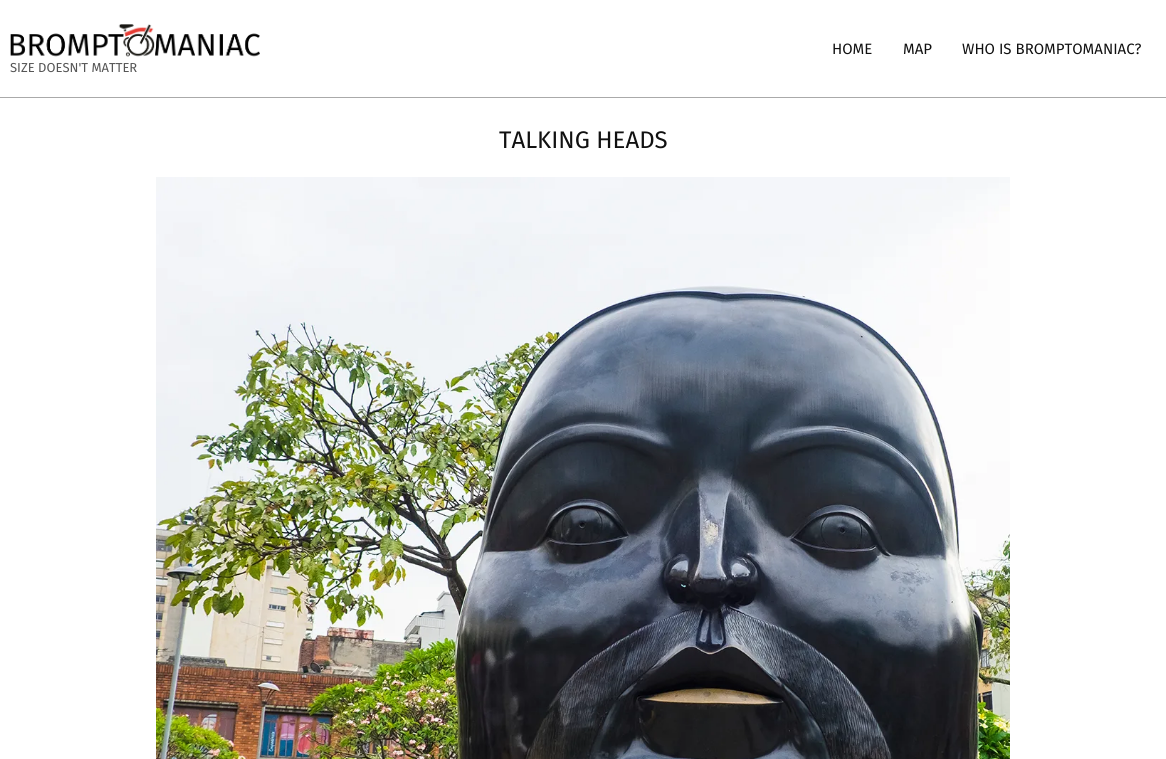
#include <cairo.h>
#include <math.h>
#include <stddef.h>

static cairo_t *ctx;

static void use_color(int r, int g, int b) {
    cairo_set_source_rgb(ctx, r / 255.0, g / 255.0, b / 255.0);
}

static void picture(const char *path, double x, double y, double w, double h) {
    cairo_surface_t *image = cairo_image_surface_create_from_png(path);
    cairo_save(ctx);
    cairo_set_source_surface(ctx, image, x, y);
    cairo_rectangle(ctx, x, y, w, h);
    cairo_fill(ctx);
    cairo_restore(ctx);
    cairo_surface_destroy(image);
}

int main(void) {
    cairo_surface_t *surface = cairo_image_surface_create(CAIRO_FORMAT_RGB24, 1166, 759);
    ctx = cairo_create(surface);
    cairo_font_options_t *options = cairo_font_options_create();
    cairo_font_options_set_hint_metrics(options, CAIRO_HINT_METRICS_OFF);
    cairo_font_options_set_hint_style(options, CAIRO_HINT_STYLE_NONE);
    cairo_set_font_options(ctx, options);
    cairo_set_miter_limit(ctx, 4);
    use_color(255, 255, 255);
    cairo_paint(ctx);
    use_color(170, 170, 170);
    cairo_rectangle(ctx, 0, 97, 1166, 1);
    cairo_fill(ctx);
    cairo_select_font_face(ctx, "Fira Sans", CAIRO_FONT_SLANT_NORMAL, CAIRO_FONT_WEIGHT_NORMAL);
    cairo_set_font_size(ctx, 15);
    use_color(17, 17, 17);
    cairo_move_to(ctx, 832, 54);
    cairo_show_text(ctx, "HOME");
    cairo_move_to(ctx, 903, 54);
    cairo_show_text(ctx, "MAP");
    cairo_move_to(ctx, 962, 54);
    cairo_show_text(ctx, "WHO IS BROMPTOMANIAC?");
    picture("img1.png", 10, 24, 250, 33);
    cairo_set_font_size(ctx, 13);
    use_color(85, 85, 85);
    cairo_move_to(ctx, 10, 72);
    cairo_show_text(ctx, "SIZE DOESN'T MATTER");
    cairo_set_font_size(ctx, 24);
    use_color(17, 17, 17);
    cairo_move_to(ctx, 499, 148);
    cairo_show_text(ctx, "TALKING HEADS");
    picture("img2.png", 156, 177, 854, 582);
    cairo_surface_write_to_png(surface, "result.png");
    cairo_font_options_destroy(options);
    cairo_destroy(ctx);
    cairo_surface_destroy(surface);
    return 0;
}
